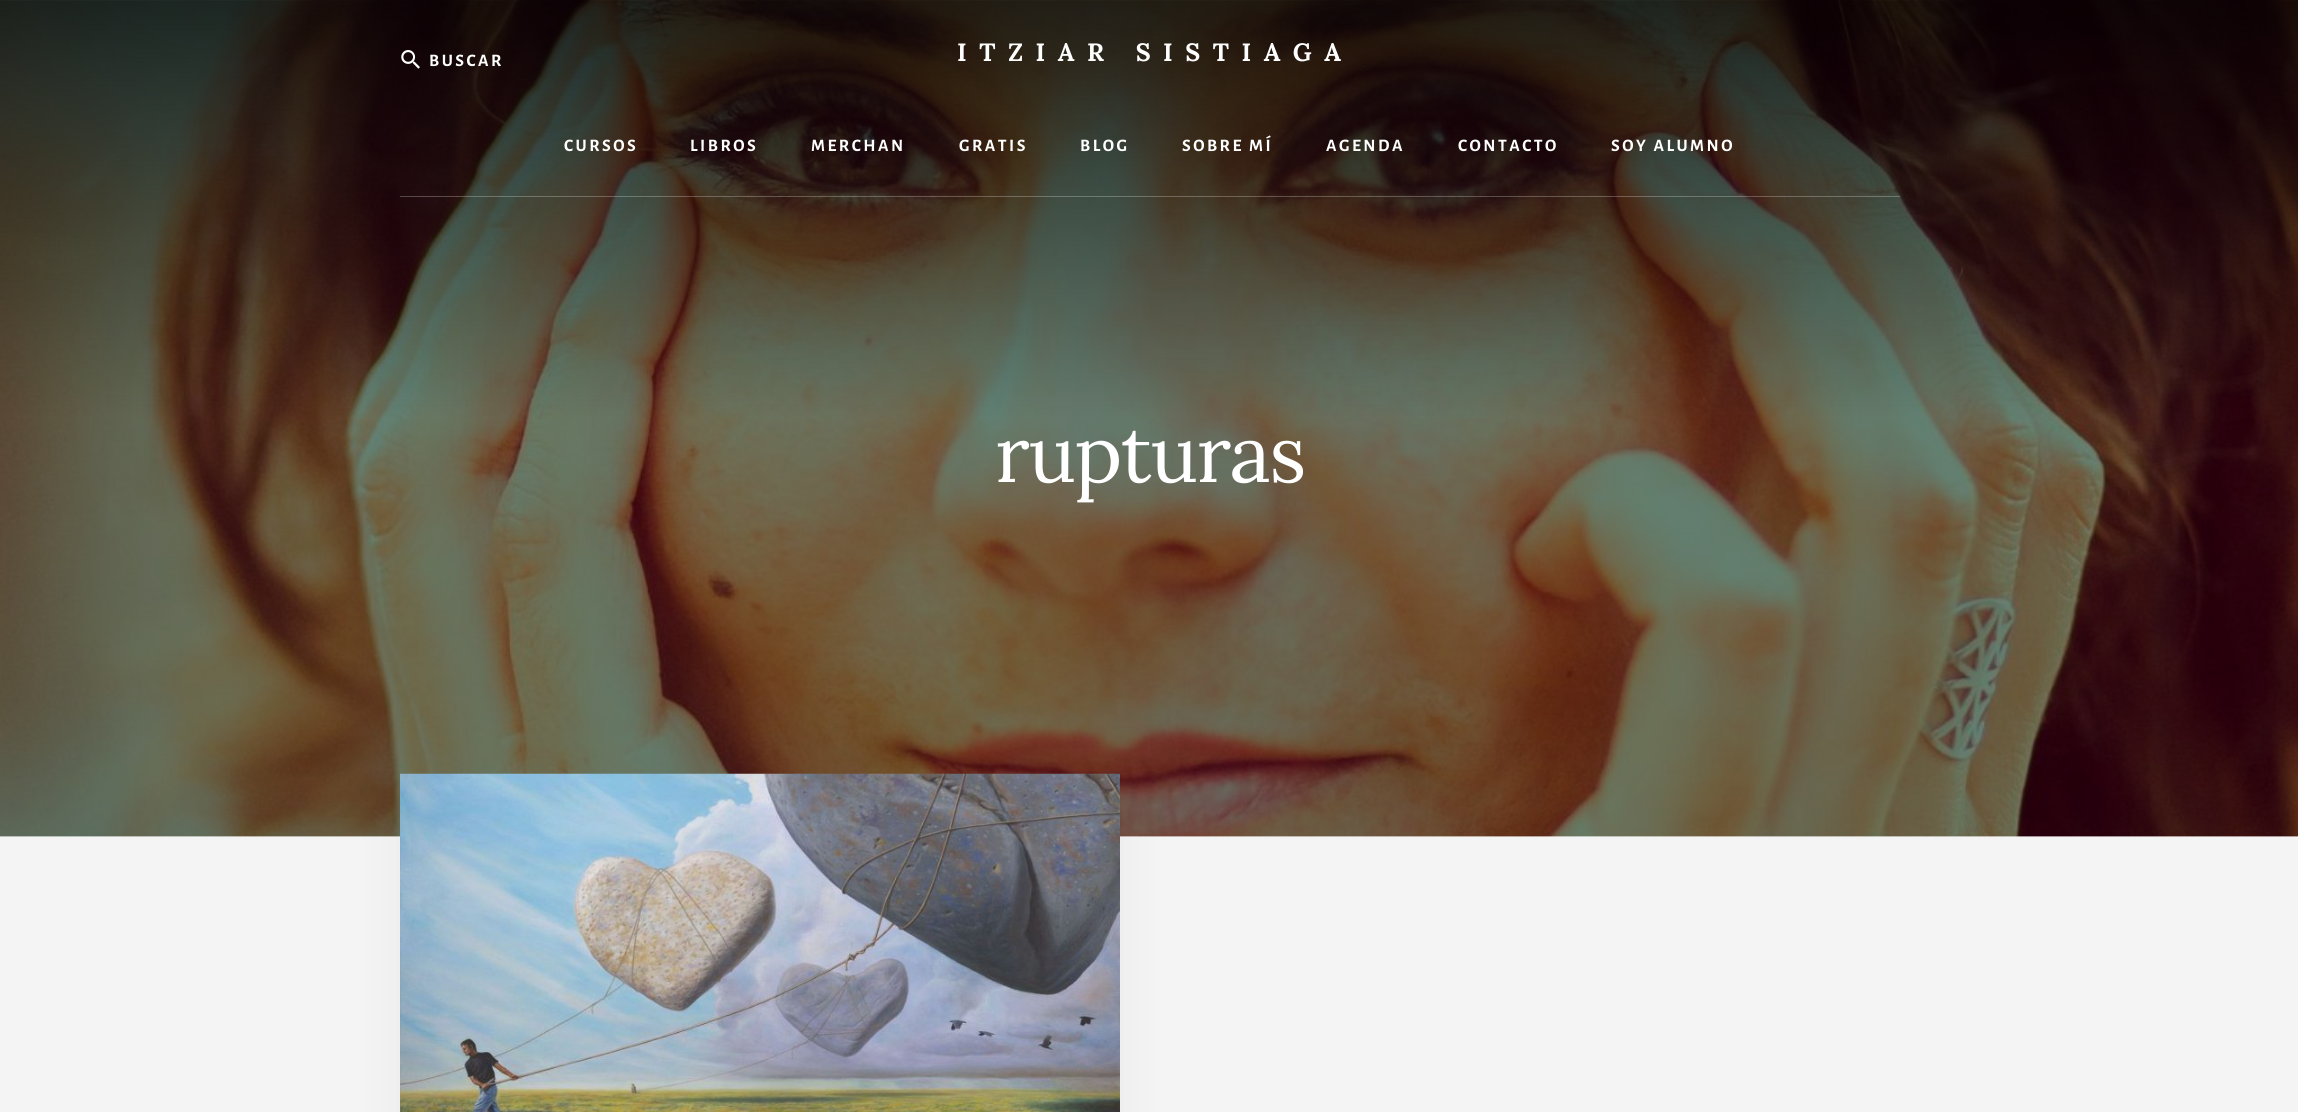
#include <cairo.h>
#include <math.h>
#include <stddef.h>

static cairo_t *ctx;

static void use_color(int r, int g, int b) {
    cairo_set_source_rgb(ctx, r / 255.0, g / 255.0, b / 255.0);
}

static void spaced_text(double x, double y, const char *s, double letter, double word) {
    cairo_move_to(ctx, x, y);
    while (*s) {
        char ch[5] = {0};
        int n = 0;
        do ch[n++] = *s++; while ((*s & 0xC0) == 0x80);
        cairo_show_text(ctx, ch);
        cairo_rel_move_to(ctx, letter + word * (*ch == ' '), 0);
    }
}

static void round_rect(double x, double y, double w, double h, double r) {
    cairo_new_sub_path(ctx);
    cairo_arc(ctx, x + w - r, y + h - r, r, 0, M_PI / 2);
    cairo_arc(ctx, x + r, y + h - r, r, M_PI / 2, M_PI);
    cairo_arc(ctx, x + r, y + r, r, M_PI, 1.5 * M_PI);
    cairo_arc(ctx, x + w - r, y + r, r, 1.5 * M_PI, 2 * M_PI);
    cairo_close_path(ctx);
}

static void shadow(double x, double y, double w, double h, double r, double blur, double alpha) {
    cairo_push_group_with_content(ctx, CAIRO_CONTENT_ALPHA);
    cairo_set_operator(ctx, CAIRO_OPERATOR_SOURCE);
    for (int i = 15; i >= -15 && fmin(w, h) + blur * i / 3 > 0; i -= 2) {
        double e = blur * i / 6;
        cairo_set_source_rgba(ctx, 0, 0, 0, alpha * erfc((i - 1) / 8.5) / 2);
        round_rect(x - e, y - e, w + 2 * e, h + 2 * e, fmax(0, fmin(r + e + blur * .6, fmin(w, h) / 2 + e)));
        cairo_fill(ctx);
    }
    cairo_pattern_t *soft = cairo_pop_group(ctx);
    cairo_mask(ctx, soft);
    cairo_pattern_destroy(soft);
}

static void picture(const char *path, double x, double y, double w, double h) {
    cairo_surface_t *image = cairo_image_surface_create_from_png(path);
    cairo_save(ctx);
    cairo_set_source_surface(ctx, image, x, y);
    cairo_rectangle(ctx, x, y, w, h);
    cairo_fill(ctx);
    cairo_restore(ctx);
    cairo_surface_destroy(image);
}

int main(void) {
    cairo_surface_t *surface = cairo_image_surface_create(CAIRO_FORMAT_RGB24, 2298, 1112);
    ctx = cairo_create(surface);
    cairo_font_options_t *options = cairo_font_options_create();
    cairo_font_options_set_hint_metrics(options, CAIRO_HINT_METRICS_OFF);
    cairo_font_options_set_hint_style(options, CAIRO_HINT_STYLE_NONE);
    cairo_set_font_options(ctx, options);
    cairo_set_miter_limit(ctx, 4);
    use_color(244, 244, 244);
    cairo_paint(ctx);
    picture("img1.png", 0, 0, 2298, 837);
    picture("img2.png", 401, 50, 19, 19);
    cairo_select_font_face(ctx, "Alegreya Sans", CAIRO_FONT_SLANT_NORMAL, CAIRO_FONT_WEIGHT_BOLD);
    cairo_set_font_size(ctx, 17.5);
    use_color(255, 255, 255);
    spaced_text(429, 66, "BUSCAR", 2.5, 0);
    cairo_select_font_face(ctx, "Lora", CAIRO_FONT_SLANT_NORMAL, CAIRO_FONT_WEIGHT_BOLD);
    cairo_set_font_size(ctx, 25);
    spaced_text(957, 61, "ITZIAR SISTIAGA", 12.5, 0);
    cairo_set_source_rgba(ctx, 1, 1, 1, 0.25);
    cairo_rectangle(ctx, 400, 196, 1500, 1);
    cairo_fill(ctx);
    cairo_select_font_face(ctx, "Alegreya Sans", CAIRO_FONT_SLANT_NORMAL, CAIRO_FONT_WEIGHT_BOLD);
    cairo_set_font_size(ctx, 17.5);
    use_color(255, 255, 255);
    spaced_text(564, 151, "CURSOS", 2.5, 0);
    spaced_text(690, 151, "LIBROS", 2.5, 0);
    spaced_text(811, 151, "MERCHAN", 2.5, 0);
    spaced_text(959, 151, "GRATIS", 2.5, 0);
    spaced_text(1080, 151, "BLOG", 2.5, 0);
    spaced_text(1182, 151, "SOBRE MÍ", 2.5, 0);
    spaced_text(1326, 151, "AGENDA", 2.5, 0);
    spaced_text(1458, 151, "CONTACTO", 2.5, 0);
    spaced_text(1611, 151, "SOY ALUMNO", 2.5, 0);
    cairo_select_font_face(ctx, "Lora", CAIRO_FONT_SLANT_NORMAL, CAIRO_FONT_WEIGHT_NORMAL);
    cairo_set_font_size(ctx, 80);
    spaced_text(995, 482, "rupturas", -1.5, 0);
    use_color(0, 0, 0);
    shadow(400, 805, 720, 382, 0, 25, 0.05);
    picture("img3.png", 400, 773, 720, 339);
    cairo_surface_write_to_png(surface, "result.png");
    cairo_font_options_destroy(options);
    cairo_destroy(ctx);
    cairo_surface_destroy(surface);
    return 0;
}
